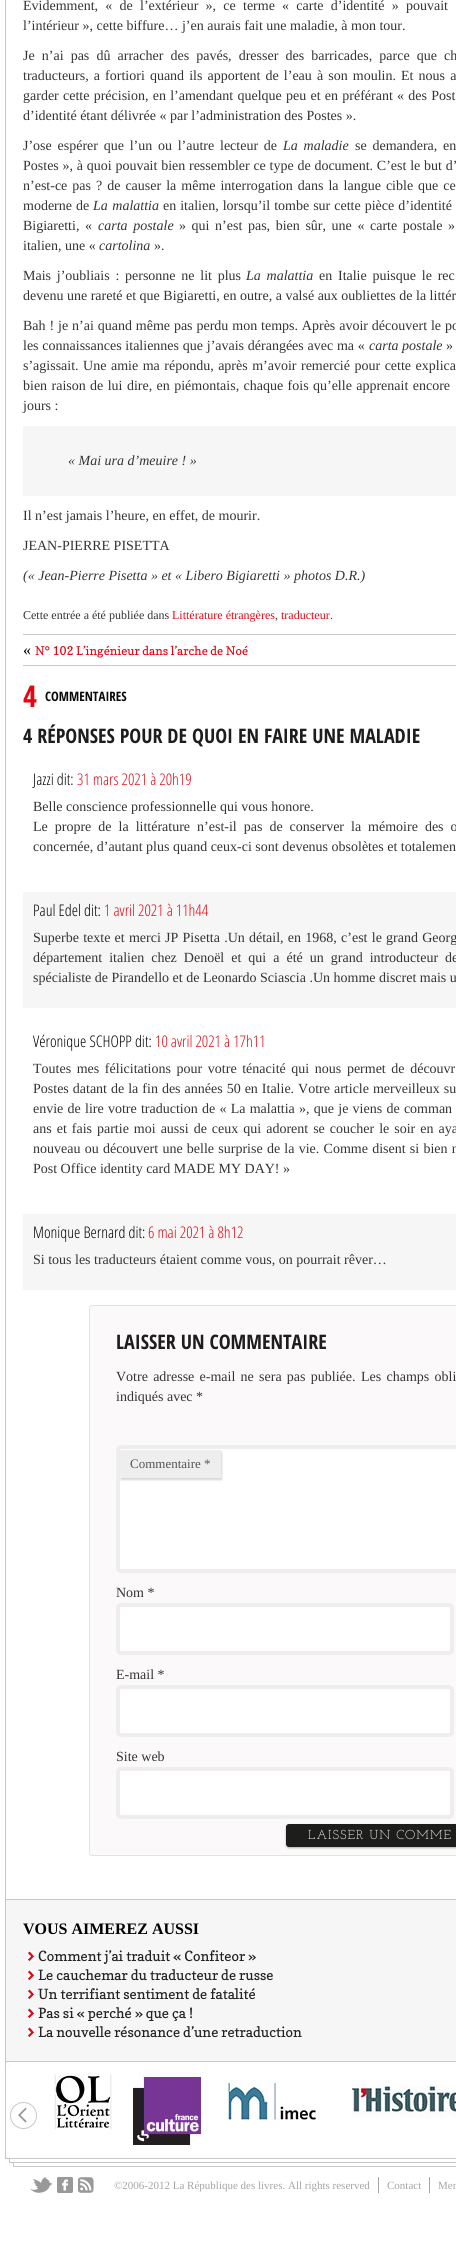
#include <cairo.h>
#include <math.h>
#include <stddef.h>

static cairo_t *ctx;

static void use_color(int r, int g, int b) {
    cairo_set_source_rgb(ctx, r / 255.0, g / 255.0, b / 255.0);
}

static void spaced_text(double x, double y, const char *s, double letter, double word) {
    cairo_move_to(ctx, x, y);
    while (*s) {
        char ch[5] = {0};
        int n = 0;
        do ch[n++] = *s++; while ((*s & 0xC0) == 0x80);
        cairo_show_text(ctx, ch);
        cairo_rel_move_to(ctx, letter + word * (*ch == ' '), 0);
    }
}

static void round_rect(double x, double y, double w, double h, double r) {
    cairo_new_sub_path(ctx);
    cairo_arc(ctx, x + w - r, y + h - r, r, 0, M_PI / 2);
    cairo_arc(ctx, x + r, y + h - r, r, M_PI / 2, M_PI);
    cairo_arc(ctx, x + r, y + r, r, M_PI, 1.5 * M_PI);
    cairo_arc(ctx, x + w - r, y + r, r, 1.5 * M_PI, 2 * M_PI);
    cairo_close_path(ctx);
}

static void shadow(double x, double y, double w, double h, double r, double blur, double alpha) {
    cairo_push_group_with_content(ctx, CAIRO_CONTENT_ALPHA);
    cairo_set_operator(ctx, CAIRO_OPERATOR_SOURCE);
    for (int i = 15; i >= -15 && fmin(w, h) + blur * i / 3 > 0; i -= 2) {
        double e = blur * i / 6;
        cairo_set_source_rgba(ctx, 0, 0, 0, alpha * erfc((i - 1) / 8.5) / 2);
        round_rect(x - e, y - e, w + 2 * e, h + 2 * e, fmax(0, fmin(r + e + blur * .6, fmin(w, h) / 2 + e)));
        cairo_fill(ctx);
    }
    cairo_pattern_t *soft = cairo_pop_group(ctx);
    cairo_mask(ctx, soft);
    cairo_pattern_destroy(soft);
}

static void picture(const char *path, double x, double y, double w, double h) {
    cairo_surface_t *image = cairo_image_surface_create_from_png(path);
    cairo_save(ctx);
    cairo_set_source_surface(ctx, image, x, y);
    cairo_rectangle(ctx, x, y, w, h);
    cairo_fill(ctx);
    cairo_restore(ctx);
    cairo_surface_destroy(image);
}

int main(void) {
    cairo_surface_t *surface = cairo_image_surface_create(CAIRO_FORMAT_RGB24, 456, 2247);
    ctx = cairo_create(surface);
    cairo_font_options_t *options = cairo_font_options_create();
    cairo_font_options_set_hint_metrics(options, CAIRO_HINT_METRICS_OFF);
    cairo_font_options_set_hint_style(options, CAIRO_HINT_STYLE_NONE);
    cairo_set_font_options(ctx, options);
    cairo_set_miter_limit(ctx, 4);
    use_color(255, 255, 255);
    cairo_paint(ctx);
    use_color(246, 246, 246);
    cairo_rectangle(ctx, 6, 1900, 450, 161);
    cairo_fill(ctx);
    use_color(199, 199, 199);
    cairo_rectangle(ctx, 5, 0, 1, 2061);
    cairo_fill(ctx);
    cairo_rectangle(ctx, 6, 1899, 450, 1);
    cairo_fill(ctx);
    cairo_select_font_face(ctx, "Liberation Serif", CAIRO_FONT_SLANT_NORMAL, CAIRO_FONT_WEIGHT_NORMAL);
    cairo_set_font_size(ctx, 14);
    use_color(52, 52, 52);
    spaced_text(23, 10, "Évidemment, « de l’extérieur », ce terme « carte d’identité » pouvait", 0, 3.75);
    cairo_move_to(ctx, 23, 30);
    cairo_show_text(ctx, "l’intérieur », cette biffure… j’en aurais fait une maladie, à mon tour.");
    spaced_text(23, 60, "Je n’ai pas dû arracher des pavés, dresser des barricades, parce que ch", 0, 3.6);
    spaced_text(23, 80, "traducteurs, a fortiori quand ils apportent de l’eau à son moulin. Et nous a", 0, 1.6);
    spaced_text(23, 100, "garder cette précision, en l’amendant quelque peu et en préférant « des Post", 0, 0.75);
    cairo_move_to(ctx, 23, 120);
    cairo_show_text(ctx, "d’identité étant délivrée « par l’administration des Postes ».");
    spaced_text(23, 150, "J’ose espérer que l’un ou l’autre lecteur de", 0, 2.25);
    cairo_select_font_face(ctx, "Liberation Serif", CAIRO_FONT_SLANT_ITALIC, CAIRO_FONT_WEIGHT_NORMAL);
    spaced_text(283, 150, "La maladie", 0, 2.25);
    cairo_select_font_face(ctx, "Liberation Serif", CAIRO_FONT_SLANT_NORMAL, CAIRO_FONT_WEIGHT_NORMAL);
    spaced_text(355, 150, "se demandera, en", 0, 2.25);
    spaced_text(23, 170, "Postes », à quoi pouvait bien ressembler ce type de document. C’est le but d’", 0, 0.25);
    spaced_text(23, 190, "n’est-ce pas ? de causer la même interrogation dans la langue cible que ce", 0, 1.5);
    spaced_text(23, 210, "moderne de", 0, 0.5);
    cairo_select_font_face(ctx, "Liberation Serif", CAIRO_FONT_SLANT_ITALIC, CAIRO_FONT_WEIGHT_NORMAL);
    spaced_text(93, 210, "La malattia", 0, 1);
    cairo_select_font_face(ctx, "Liberation Serif", CAIRO_FONT_SLANT_NORMAL, CAIRO_FONT_WEIGHT_NORMAL);
    spaced_text(163, 210, "en italien, lorsqu’il tombe sur cette pièce d’identité", 0, 0.5);
    spaced_text(23, 230, "Bigiaretti, «", 0, 2.1);
    cairo_select_font_face(ctx, "Liberation Serif", CAIRO_FONT_SLANT_ITALIC, CAIRO_FONT_WEIGHT_NORMAL);
    spaced_text(98, 230, "carta postale", 0, 2.1);
    cairo_select_font_face(ctx, "Liberation Serif", CAIRO_FONT_SLANT_NORMAL, CAIRO_FONT_WEIGHT_NORMAL);
    spaced_text(179, 230, "» qui n’est pas, bien sûr, une « carte postale »", 0, 2.1);
    cairo_move_to(ctx, 23, 250);
    cairo_show_text(ctx, "italien, une «");
    cairo_select_font_face(ctx, "Liberation Serif", CAIRO_FONT_SLANT_ITALIC, CAIRO_FONT_WEIGHT_NORMAL);
    cairo_move_to(ctx, 99, 250);
    cairo_show_text(ctx, "cartolina");
    cairo_select_font_face(ctx, "Liberation Serif", CAIRO_FONT_SLANT_NORMAL, CAIRO_FONT_WEIGHT_NORMAL);
    cairo_move_to(ctx, 154, 250);
    cairo_show_text(ctx, "».");
    spaced_text(23, 280, "Mais j’oubliais : personne ne lit plus", 0, 2.25);
    cairo_select_font_face(ctx, "Liberation Serif", CAIRO_FONT_SLANT_ITALIC, CAIRO_FONT_WEIGHT_NORMAL);
    spaced_text(246, 280, "La malattia", 0, 2.25);
    cairo_select_font_face(ctx, "Liberation Serif", CAIRO_FONT_SLANT_NORMAL, CAIRO_FONT_WEIGHT_NORMAL);
    spaced_text(319, 280, "en Italie puisque le rec", 0, 2.25);
    cairo_move_to(ctx, 23, 300);
    cairo_show_text(ctx, "devenu une rareté et que Bigiaretti, en outre, a valsé aux oubliettes de la littér");
    spaced_text(23, 330, "Bah ! je n’ai quand même pas perdu mon temps. Après avoir découvert le po", 0, 0.4);
    spaced_text(23, 350, "les connaissances italiennes que j’avais dérangées avec ma «", 0, 0.25);
    cairo_select_font_face(ctx, "Liberation Serif", CAIRO_FONT_SLANT_ITALIC, CAIRO_FONT_WEIGHT_NORMAL);
    cairo_move_to(ctx, 369, 350);
    cairo_show_text(ctx, "carta postale");
    cairo_select_font_face(ctx, "Liberation Serif", CAIRO_FONT_SLANT_NORMAL, CAIRO_FONT_WEIGHT_NORMAL);
    spaced_text(446, 350, "»", 0, 0.25);
    spaced_text(23, 370, "s’agissait. Une amie ma répondu, après m’avoir remercié pour cette explica", 0, 1);
    spaced_text(23, 390, "bien raison de lui dire, en piémontais, chaque fois qu’elle apprenait encore", 0, 0.9);
    cairo_move_to(ctx, 23, 410);
    cairo_show_text(ctx, "jours :");
    use_color(246, 246, 246);
    cairo_rectangle(ctx, 23, 426, 433, 70);
    cairo_fill(ctx);
    cairo_select_font_face(ctx, "Liberation Serif", CAIRO_FONT_SLANT_ITALIC, CAIRO_FONT_WEIGHT_NORMAL);
    use_color(52, 52, 52);
    cairo_move_to(ctx, 68, 465);
    cairo_show_text(ctx, "« Mai ura d’meuire ! »");
    cairo_select_font_face(ctx, "Liberation Serif", CAIRO_FONT_SLANT_NORMAL, CAIRO_FONT_WEIGHT_NORMAL);
    cairo_move_to(ctx, 23, 520);
    cairo_show_text(ctx, "Il n’est jamais l’heure, en effet, de mourir.");
    cairo_move_to(ctx, 23, 550);
    cairo_show_text(ctx, "JEAN-PIERRE PISETTA");
    cairo_select_font_face(ctx, "Liberation Serif", CAIRO_FONT_SLANT_ITALIC, CAIRO_FONT_WEIGHT_NORMAL);
    cairo_move_to(ctx, 23, 580);
    cairo_show_text(ctx, "(« Jean-Pierre Pisetta » et « Libero Bigiaretti » photos D.R.)");
    cairo_select_font_face(ctx, "Liberation Serif", CAIRO_FONT_SLANT_NORMAL, CAIRO_FONT_WEIGHT_NORMAL);
    cairo_set_font_size(ctx, 12);
    cairo_move_to(ctx, 23, 619);
    cairo_show_text(ctx, "Cette entrée a été publiée dans");
    use_color(227, 6, 19);
    cairo_move_to(ctx, 172, 619);
    cairo_show_text(ctx, "Littérature étrangères");
    use_color(52, 52, 52);
    cairo_move_to(ctx, 275, 619);
    cairo_show_text(ctx, ",");
    use_color(227, 6, 19);
    cairo_move_to(ctx, 281, 619);
    cairo_show_text(ctx, "traducteur");
    use_color(52, 52, 52);
    cairo_move_to(ctx, 330, 619);
    cairo_show_text(ctx, ".");
    use_color(199, 199, 199);
    cairo_rectangle(ctx, 23, 634, 433, 1);
    cairo_fill(ctx);
    cairo_rectangle(ctx, 23, 665, 433, 1);
    cairo_fill(ctx);
    cairo_set_font_size(ctx, 16);
    use_color(0, 0, 0);
    cairo_move_to(ctx, 23, 655);
    cairo_show_text(ctx, "«");
    cairo_select_font_face(ctx, "Copse", CAIRO_FONT_SLANT_NORMAL, CAIRO_FONT_WEIGHT_NORMAL);
    cairo_set_font_size(ctx, 12);
    use_color(227, 6, 19);
    cairo_move_to(ctx, 35, 655);
    cairo_show_text(ctx, "N° 102 L’ingénieur dans l’arche de Noé");
    cairo_select_font_face(ctx, "Open Sans Condensed", CAIRO_FONT_SLANT_NORMAL, CAIRO_FONT_WEIGHT_BOLD);
    cairo_set_font_size(ctx, 30);
    cairo_move_to(ctx, 23, 707);
    cairo_show_text(ctx, "4");
    cairo_set_font_size(ctx, 13);
    use_color(8, 8, 8);
    cairo_move_to(ctx, 45, 701);
    cairo_show_text(ctx, "COMMENTAIRES");
    cairo_set_font_size(ctx, 20);
    use_color(29, 29, 27);
    cairo_move_to(ctx, 23, 743);
    cairo_show_text(ctx, "4 RÉPONSES POUR DE QUOI EN FAIRE UNE MALADIE");
    cairo_select_font_face(ctx, "Open Sans Condensed Light", CAIRO_FONT_SLANT_NORMAL, CAIRO_FONT_WEIGHT_NORMAL);
    cairo_set_font_size(ctx, 16);
    use_color(0, 0, 0);
    cairo_move_to(ctx, 33, 785);
    cairo_show_text(ctx, "Jazzi dit:");
    use_color(227, 6, 19);
    cairo_move_to(ctx, 77, 785);
    cairo_show_text(ctx, "31 mars 2021 à 20h19");
    cairo_select_font_face(ctx, "Liberation Serif", CAIRO_FONT_SLANT_NORMAL, CAIRO_FONT_WEIGHT_NORMAL);
    cairo_set_font_size(ctx, 14);
    use_color(52, 52, 52);
    cairo_move_to(ctx, 33, 811);
    cairo_show_text(ctx, "Belle conscience professionnelle qui vous honore.");
    spaced_text(33, 831, "Le propre de la littérature n’est-il pas de conserver la mémoire des o", 0, 3.5);
    cairo_move_to(ctx, 33, 851);
    cairo_show_text(ctx, "concernée, d’autant plus quand ceux-ci sont devenus obsolètes et totalemen");
    use_color(246, 246, 246);
    cairo_rectangle(ctx, 23, 892, 433, 116);
    cairo_fill(ctx);
    cairo_select_font_face(ctx, "Open Sans Condensed Light", CAIRO_FONT_SLANT_NORMAL, CAIRO_FONT_WEIGHT_NORMAL);
    cairo_set_font_size(ctx, 16);
    use_color(0, 0, 0);
    cairo_move_to(ctx, 33, 916);
    cairo_show_text(ctx, "Paul Edel dit:");
    use_color(227, 6, 19);
    cairo_move_to(ctx, 104, 916);
    cairo_show_text(ctx, "1 avril 2021 à 11h44");
    cairo_select_font_face(ctx, "Liberation Serif", CAIRO_FONT_SLANT_NORMAL, CAIRO_FONT_WEIGHT_NORMAL);
    cairo_set_font_size(ctx, 14);
    use_color(52, 52, 52);
    spaced_text(33, 942, "Superbe texte et merci JP Pisetta .Un détail, en 1968, c’est le grand Georg", 0, 0.75);
    spaced_text(33, 962, "département italien chez Denoël et qui a été un grand introducteur de", 0, 3.5);
    cairo_move_to(ctx, 33, 982);
    cairo_show_text(ctx, "spécialiste de Pirandello et de Leonardo Sciascia .Un homme discret mais u");
    cairo_select_font_face(ctx, "Open Sans Condensed Light", CAIRO_FONT_SLANT_NORMAL, CAIRO_FONT_WEIGHT_NORMAL);
    cairo_set_font_size(ctx, 16);
    use_color(0, 0, 0);
    cairo_move_to(ctx, 33, 1047);
    cairo_show_text(ctx, "Véronique SCHOPP dit:");
    use_color(227, 6, 19);
    cairo_move_to(ctx, 155, 1047);
    cairo_show_text(ctx, "10 avril 2021 à 17h11");
    cairo_select_font_face(ctx, "Liberation Serif", CAIRO_FONT_SLANT_NORMAL, CAIRO_FONT_WEIGHT_NORMAL);
    cairo_set_font_size(ctx, 14);
    use_color(52, 52, 52);
    spaced_text(33, 1073, "Toutes mes félicitations pour votre ténacité qui nous permet de découvr", 0, 2.1);
    spaced_text(33, 1093, "Postes datant de la fin des années 50 en Italie. Votre article merveilleux su", 0, 0.5);
    spaced_text(33, 1113, "envie de lire votre traduction de « La malattia », que je viens de comman", 0, 0.75);
    spaced_text(33, 1133, "ans et fais partie moi aussi de ceux qui adorent se coucher le soir en aya", 0, 1.5);
    spaced_text(33, 1153, "nouveau ou découvert une belle surprise de la vie. Comme disent si bien n", 0, 0.75);
    cairo_move_to(ctx, 33, 1173);
    cairo_show_text(ctx, "Post Office identity card MADE MY DAY! »");
    use_color(246, 246, 246);
    cairo_rectangle(ctx, 23, 1214, 433, 76);
    cairo_fill(ctx);
    cairo_select_font_face(ctx, "Open Sans Condensed Light", CAIRO_FONT_SLANT_NORMAL, CAIRO_FONT_WEIGHT_NORMAL);
    cairo_set_font_size(ctx, 16);
    use_color(0, 0, 0);
    cairo_move_to(ctx, 33, 1238);
    cairo_show_text(ctx, "Monique Bernard dit:");
    use_color(227, 6, 19);
    cairo_move_to(ctx, 148, 1238);
    cairo_show_text(ctx, "6 mai 2021 à 8h12");
    cairo_select_font_face(ctx, "Liberation Serif", CAIRO_FONT_SLANT_NORMAL, CAIRO_FONT_WEIGHT_NORMAL);
    cairo_set_font_size(ctx, 14);
    use_color(52, 52, 52);
    cairo_move_to(ctx, 33, 1264);
    cairo_show_text(ctx, "Si tous les traducteurs étaient comme vous, on pourrait rêver…");
    use_color(251, 249, 249);
    round_rect(89.5, 1305.5, 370, 550, 2.5);
    cairo_fill_preserve(ctx);
    use_color(229, 226, 223);
    cairo_set_line_width(ctx, 1);
    cairo_stroke(ctx);
    cairo_select_font_face(ctx, "Open Sans Condensed", CAIRO_FONT_SLANT_NORMAL, CAIRO_FONT_WEIGHT_BOLD);
    cairo_set_font_size(ctx, 20);
    use_color(29, 29, 27);
    cairo_move_to(ctx, 116, 1349);
    cairo_show_text(ctx, "LAISSER UN COMMENTAIRE");
    cairo_select_font_face(ctx, "Liberation Serif", CAIRO_FONT_SLANT_NORMAL, CAIRO_FONT_WEIGHT_NORMAL);
    cairo_set_font_size(ctx, 14);
    use_color(52, 52, 52);
    spaced_text(116, 1381, "Votre adresse e-mail ne sera pas publiée.", 0, 1.75);
    spaced_text(361, 1381, "Les champs obli", 0, 1.75);
    cairo_move_to(ctx, 116, 1401);
    cairo_show_text(ctx, "indiqués avec *");
    use_color(255, 255, 255);
    round_rect(118, 1447, 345, 124, 3);
    cairo_fill_preserve(ctx);
    use_color(238, 238, 238);
    cairo_set_line_width(ctx, 4);
    cairo_stroke(ctx);
    use_color(204, 204, 204);
    shadow(121, 1452, 101, 28, 0, 1, 0.8);
    use_color(238, 238, 238);
    cairo_rectangle(ctx, 120, 1450, 101, 28);
    cairo_fill(ctx);
    cairo_set_font_size(ctx, 13);
    use_color(85, 85, 85);
    cairo_move_to(ctx, 130, 1468);
    cairo_show_text(ctx, "Commentaire *");
    cairo_set_font_size(ctx, 14);
    use_color(52, 52, 52);
    cairo_move_to(ctx, 116, 1597);
    cairo_show_text(ctx, "Nom *");
    use_color(255, 255, 255);
    round_rect(118, 1605, 334, 48, 3);
    cairo_fill_preserve(ctx);
    use_color(238, 238, 238);
    cairo_stroke(ctx);
    use_color(52, 52, 52);
    cairo_move_to(ctx, 116, 1679);
    cairo_show_text(ctx, "E-mail *");
    use_color(255, 255, 255);
    round_rect(118, 1687, 334, 48, 3);
    cairo_fill_preserve(ctx);
    use_color(238, 238, 238);
    cairo_stroke(ctx);
    use_color(52, 52, 52);
    cairo_move_to(ctx, 116, 1761);
    cairo_show_text(ctx, "Site web");
    use_color(255, 255, 255);
    round_rect(118, 1769, 334, 48, 3);
    cairo_fill_preserve(ctx);
    use_color(238, 238, 238);
    cairo_stroke(ctx);
    use_color(0, 0, 0);
    shadow(286, 1825, 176, 23, 3, 1, 0.3);
    use_color(29, 29, 27);
    round_rect(286, 1824, 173, 23, 3);
    cairo_fill(ctx);
    cairo_select_font_face(ctx, "Josefin Slab", CAIRO_FONT_SLANT_NORMAL, CAIRO_FONT_WEIGHT_NORMAL);
    cairo_set_font_size(ctx, 13);
    use_color(238, 238, 238);
    spaced_text(308, 1839, "LAISSER UN COMME", 1, 0);
    cairo_select_font_face(ctx, "Liberation Serif", CAIRO_FONT_SLANT_NORMAL, CAIRO_FONT_WEIGHT_BOLD);
    cairo_set_font_size(ctx, 16);
    use_color(0, 0, 0);
    cairo_move_to(ctx, 23, 1934);
    cairo_show_text(ctx, "VOUS AIMEREZ AUSSI");
    picture("img1.png", 28, 1951, 7, 10);
    cairo_select_font_face(ctx, "Copse", CAIRO_FONT_SLANT_NORMAL, CAIRO_FONT_WEIGHT_NORMAL);
    cairo_set_font_size(ctx, 14);
    use_color(34, 34, 34);
    cairo_move_to(ctx, 38, 1961);
    cairo_show_text(ctx, "Comment j’ai traduit « Confiteor »");
    picture("img1.png", 28, 1970, 7, 10);
    cairo_move_to(ctx, 38, 1980);
    cairo_show_text(ctx, "Le cauchemar du traducteur de russe");
    picture("img1.png", 28, 1989, 7, 10);
    cairo_move_to(ctx, 38, 1999);
    cairo_show_text(ctx, "Un terrifiant sentiment de fatalité");
    picture("img1.png", 28, 2008, 7, 10);
    cairo_move_to(ctx, 38, 2018);
    cairo_show_text(ctx, "Pas si « perché » que ça !");
    picture("img1.png", 28, 2027, 7, 10);
    cairo_move_to(ctx, 38, 2037);
    cairo_show_text(ctx, "La nouvelle résonance d’une retraduction");
    picture("img2.png", 5, 2061, 451, 106);
    picture("img3.png", 10, 2102, 27, 27);
    picture("img4.png", 53, 2072, 59, 58);
    picture("img5.png", 131, 2072, 72, 75);
    picture("img6.png", 228, 2080, 88, 40);
    picture("img7.png", 352, 2084, 104, 34);
    picture("img8.png", 30, 2177, 22, 16);
    picture("img9.png", 57, 2177, 16, 16);
    picture("img10.png", 78, 2177, 16, 16);
    cairo_select_font_face(ctx, "Liberation Serif", CAIRO_FONT_SLANT_NORMAL, CAIRO_FONT_WEIGHT_NORMAL);
    cairo_set_font_size(ctx, 11);
    use_color(165, 165, 165);
    cairo_move_to(ctx, 114, 2189);
    cairo_show_text(ctx, "©2006-2012 La République des livres. All rights reserved");
    cairo_rectangle(ctx, 378, 2177, 1, 16);
    cairo_fill(ctx);
    cairo_move_to(ctx, 387, 2189);
    cairo_show_text(ctx, "Contact");
    cairo_rectangle(ctx, 429, 2177, 1, 16);
    cairo_fill(ctx);
    cairo_move_to(ctx, 438, 2189);
    cairo_show_text(ctx, "Men");
    cairo_surface_write_to_png(surface, "result.png");
    cairo_font_options_destroy(options);
    cairo_destroy(ctx);
    cairo_surface_destroy(surface);
    return 0;
}
